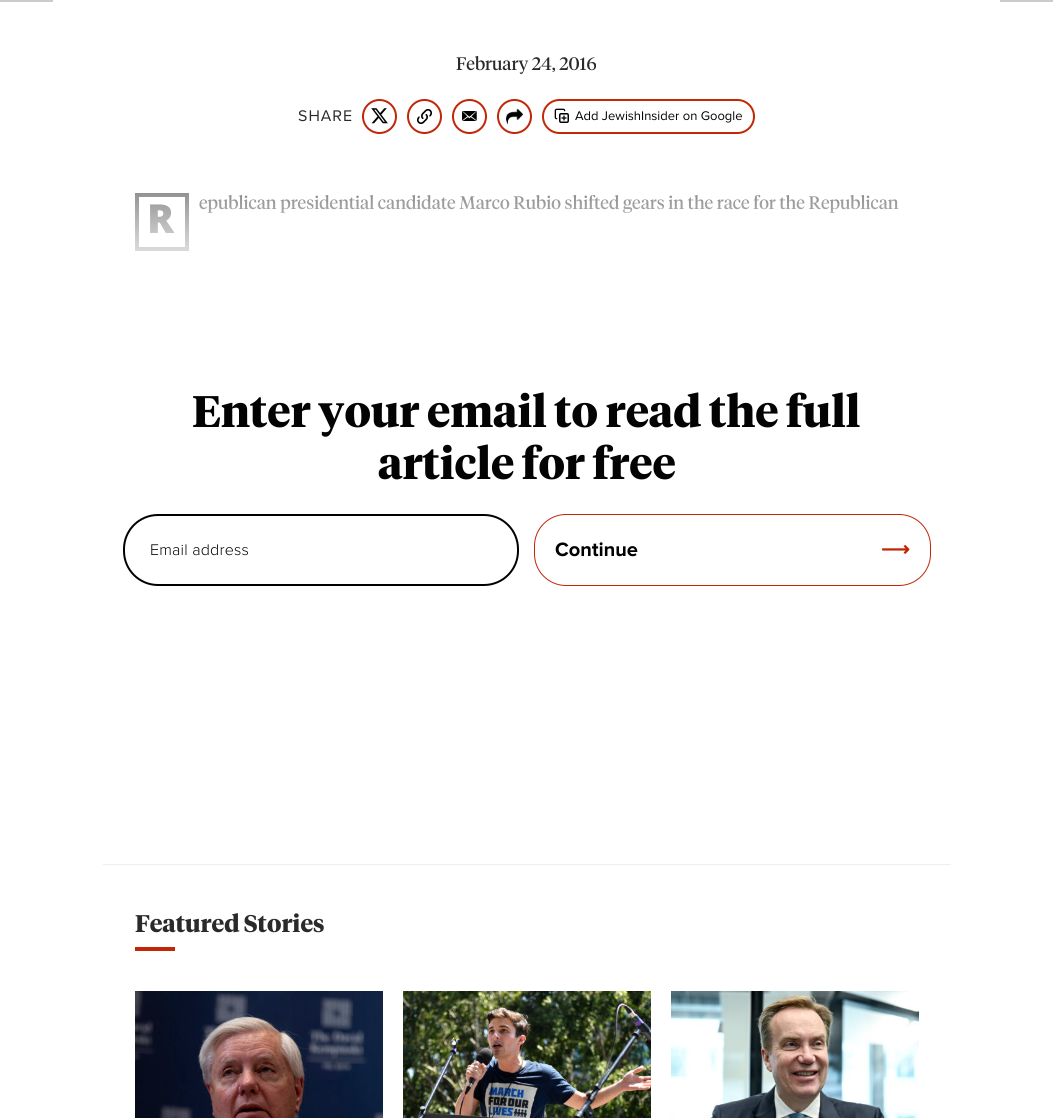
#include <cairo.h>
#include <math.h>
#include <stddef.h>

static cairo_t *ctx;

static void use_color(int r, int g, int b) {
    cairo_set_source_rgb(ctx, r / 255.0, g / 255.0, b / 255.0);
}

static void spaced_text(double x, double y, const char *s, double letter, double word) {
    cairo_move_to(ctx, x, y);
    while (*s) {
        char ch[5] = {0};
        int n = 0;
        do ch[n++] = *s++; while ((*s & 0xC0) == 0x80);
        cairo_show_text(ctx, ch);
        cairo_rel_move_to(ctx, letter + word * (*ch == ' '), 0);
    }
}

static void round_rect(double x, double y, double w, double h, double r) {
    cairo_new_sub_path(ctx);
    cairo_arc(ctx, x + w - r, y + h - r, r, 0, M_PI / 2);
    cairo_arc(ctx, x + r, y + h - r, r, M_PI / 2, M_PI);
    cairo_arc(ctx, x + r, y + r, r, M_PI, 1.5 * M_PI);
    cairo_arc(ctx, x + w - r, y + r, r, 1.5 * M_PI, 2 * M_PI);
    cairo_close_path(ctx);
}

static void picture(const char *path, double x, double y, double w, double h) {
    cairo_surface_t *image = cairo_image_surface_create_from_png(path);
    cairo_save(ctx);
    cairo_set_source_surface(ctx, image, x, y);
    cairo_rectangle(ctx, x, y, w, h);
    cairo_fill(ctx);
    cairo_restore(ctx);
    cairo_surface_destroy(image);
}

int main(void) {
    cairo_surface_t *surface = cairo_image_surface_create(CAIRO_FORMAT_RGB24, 1053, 1118);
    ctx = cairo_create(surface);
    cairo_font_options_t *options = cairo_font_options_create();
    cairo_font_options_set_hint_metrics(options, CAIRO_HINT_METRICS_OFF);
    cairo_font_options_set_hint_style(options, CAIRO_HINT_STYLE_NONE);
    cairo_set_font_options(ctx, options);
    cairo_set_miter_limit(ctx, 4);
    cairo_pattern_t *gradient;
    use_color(255, 255, 255);
    cairo_paint(ctx);
    gradient = cairo_pattern_create_linear(772, 133, 281, -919);
    cairo_pattern_add_color_stop_rgba(gradient, 0.5, 0.8, 0.8, 0.8, 1);
    cairo_pattern_add_color_stop_rgba(gradient, 1, 0.6, 0.6, 0.6, 1);
    cairo_set_source(ctx, gradient);
    cairo_pattern_destroy(gradient);
    cairo_rectangle(ctx, 0, 0, 1053, 2);
    cairo_fill(ctx);
    use_color(255, 255, 255);
    cairo_rectangle(ctx, 53, 0, 947, 2);
    cairo_fill(ctx);
    cairo_select_font_face(ctx, "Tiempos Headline", CAIRO_FONT_SLANT_NORMAL, CAIRO_FONT_WEIGHT_NORMAL);
    cairo_set_font_size(ctx, 18);
    use_color(42, 42, 42);
    cairo_move_to(ctx, 456, 70);
    cairo_show_text(ctx, "February 24, 2016");
    cairo_select_font_face(ctx, "Proxima Nova", CAIRO_FONT_SLANT_NORMAL, CAIRO_FONT_WEIGHT_NORMAL);
    cairo_set_font_size(ctx, 16);
    spaced_text(298, 121, "SHARE", 1, 0);
    cairo_new_path(ctx);
    cairo_arc(ctx, 379.5, 116.5, 16.5, 0, 2 * M_PI);
    use_color(192, 38, 7);
    cairo_stroke(ctx);
    picture("img1.png", 371, 108, 17, 16);
    cairo_arc(ctx, 424.5, 116.5, 16.5, 0, 2 * M_PI);
    cairo_stroke(ctx);
    picture("img2.png", 417, 109, 15, 15);
    cairo_arc(ctx, 469.5, 116.5, 16.5, 0, 2 * M_PI);
    cairo_stroke(ctx);
    picture("img3.png", 462, 111, 15, 10);
    cairo_arc(ctx, 514.5, 116.5, 16.5, 0, 2 * M_PI);
    cairo_stroke(ctx);
    picture("img4.png", 506, 108, 17, 17);
    round_rect(543, 100, 211, 33, 16.5);
    use_color(194, 40, 5);
    cairo_stroke(ctx);
    picture("img5.png", 554, 108, 15, 15);
    cairo_set_font_size(ctx, 13);
    use_color(3, 3, 3);
    cairo_move_to(ctx, 575, 120);
    cairo_show_text(ctx, "Add JewishInsider on Google");
    cairo_rectangle(ctx, 137, 195, 50, 54);
    use_color(51, 51, 51);
    cairo_set_line_width(ctx, 4);
    cairo_stroke(ctx);
    cairo_select_font_face(ctx, "Noto Sans Black", CAIRO_FONT_SLANT_NORMAL, CAIRO_FONT_WEIGHT_NORMAL);
    cairo_set_font_size(ctx, 40);
    cairo_move_to(ctx, 147, 233);
    cairo_show_text(ctx, "R");
    cairo_select_font_face(ctx, "Tiempos Headline", CAIRO_FONT_SLANT_NORMAL, CAIRO_FONT_WEIGHT_NORMAL);
    cairo_set_font_size(ctx, 18);
    use_color(42, 42, 42);
    cairo_move_to(ctx, 199, 209);
    cairo_show_text(ctx, "epublican presidential candidate Marco Rubio shifted gears in the race for the Republican");
    gradient = cairo_pattern_create_linear(527, 189, 527, 864);
    cairo_pattern_add_color_stop_rgba(gradient, 0, 1, 1, 1, 0.25);
    cairo_pattern_add_color_stop_rgba(gradient, 0.15, 1, 1, 1, 1);
    cairo_pattern_add_color_stop_rgba(gradient, 1, 1, 1, 1, 1);
    cairo_set_source(ctx, gradient);
    cairo_pattern_destroy(gradient);
    cairo_rectangle(ctx, 135, 193, 764, 58);
    cairo_fill(ctx);
    gradient = cairo_pattern_create_linear(527, 189, 527, 646);
    cairo_pattern_add_color_stop_rgba(gradient, 0, 1, 1, 1, 0.25);
    cairo_pattern_add_color_stop_rgba(gradient, 0.73, 1, 1, 1, 0.95);
    cairo_set_source(ctx, gradient);
    cairo_pattern_destroy(gradient);
    cairo_rectangle(ctx, 135, 193, 764, 58);
    cairo_fill(ctx);
    cairo_select_font_face(ctx, "Tiempos Headline", CAIRO_FONT_SLANT_NORMAL, CAIRO_FONT_WEIGHT_BOLD);
    cairo_set_font_size(ctx, 44);
    use_color(3, 3, 3);
    cairo_move_to(ctx, 192, 427);
    cairo_show_text(ctx, "Enter your email to read the full");
    cairo_move_to(ctx, 378, 479);
    cairo_show_text(ctx, "article for free");
    round_rect(124, 515, 394, 70, 34);
    use_color(0, 0, 0);
    cairo_set_line_width(ctx, 2);
    cairo_stroke(ctx);
    cairo_select_font_face(ctx, "Proxima Nova Light", CAIRO_FONT_SLANT_NORMAL, CAIRO_FONT_WEIGHT_NORMAL);
    cairo_set_font_size(ctx, 16);
    use_color(3, 3, 3);
    spaced_text(150, 555, "Email address", 0.2, 0);
    round_rect(534.5, 514.5, 396, 71, 31.5);
    use_color(192, 38, 7);
    cairo_set_line_width(ctx, 1);
    cairo_stroke(ctx);
    picture("img6.png", 555, 542, 83, 15);
    cairo_select_font_face(ctx, "DejaVu Sans", CAIRO_FONT_SLANT_NORMAL, CAIRO_FONT_WEIGHT_BOLD);
    cairo_set_font_size(ctx, 20);
    cairo_move_to(ctx, 881, 556);
    cairo_show_text(ctx, "⟶");
    use_color(238, 238, 238);
    cairo_rectangle(ctx, 103, 864, 848, 1);
    cairo_fill(ctx);
    cairo_select_font_face(ctx, "Tiempos Headline", CAIRO_FONT_SLANT_NORMAL, CAIRO_FONT_WEIGHT_BOLD);
    cairo_set_font_size(ctx, 24);
    use_color(42, 42, 42);
    cairo_move_to(ctx, 135, 932);
    cairo_show_text(ctx, "Featured Stories");
    use_color(192, 38, 7);
    cairo_rectangle(ctx, 135, 947, 40, 4);
    cairo_fill(ctx);
    picture("img7.png", 135, 991, 248, 127);
    picture("img8.png", 403, 991, 248, 127);
    picture("img9.png", 671, 991, 248, 127);
    cairo_surface_write_to_png(surface, "result.png");
    cairo_font_options_destroy(options);
    cairo_destroy(ctx);
    cairo_surface_destroy(surface);
    return 0;
}
